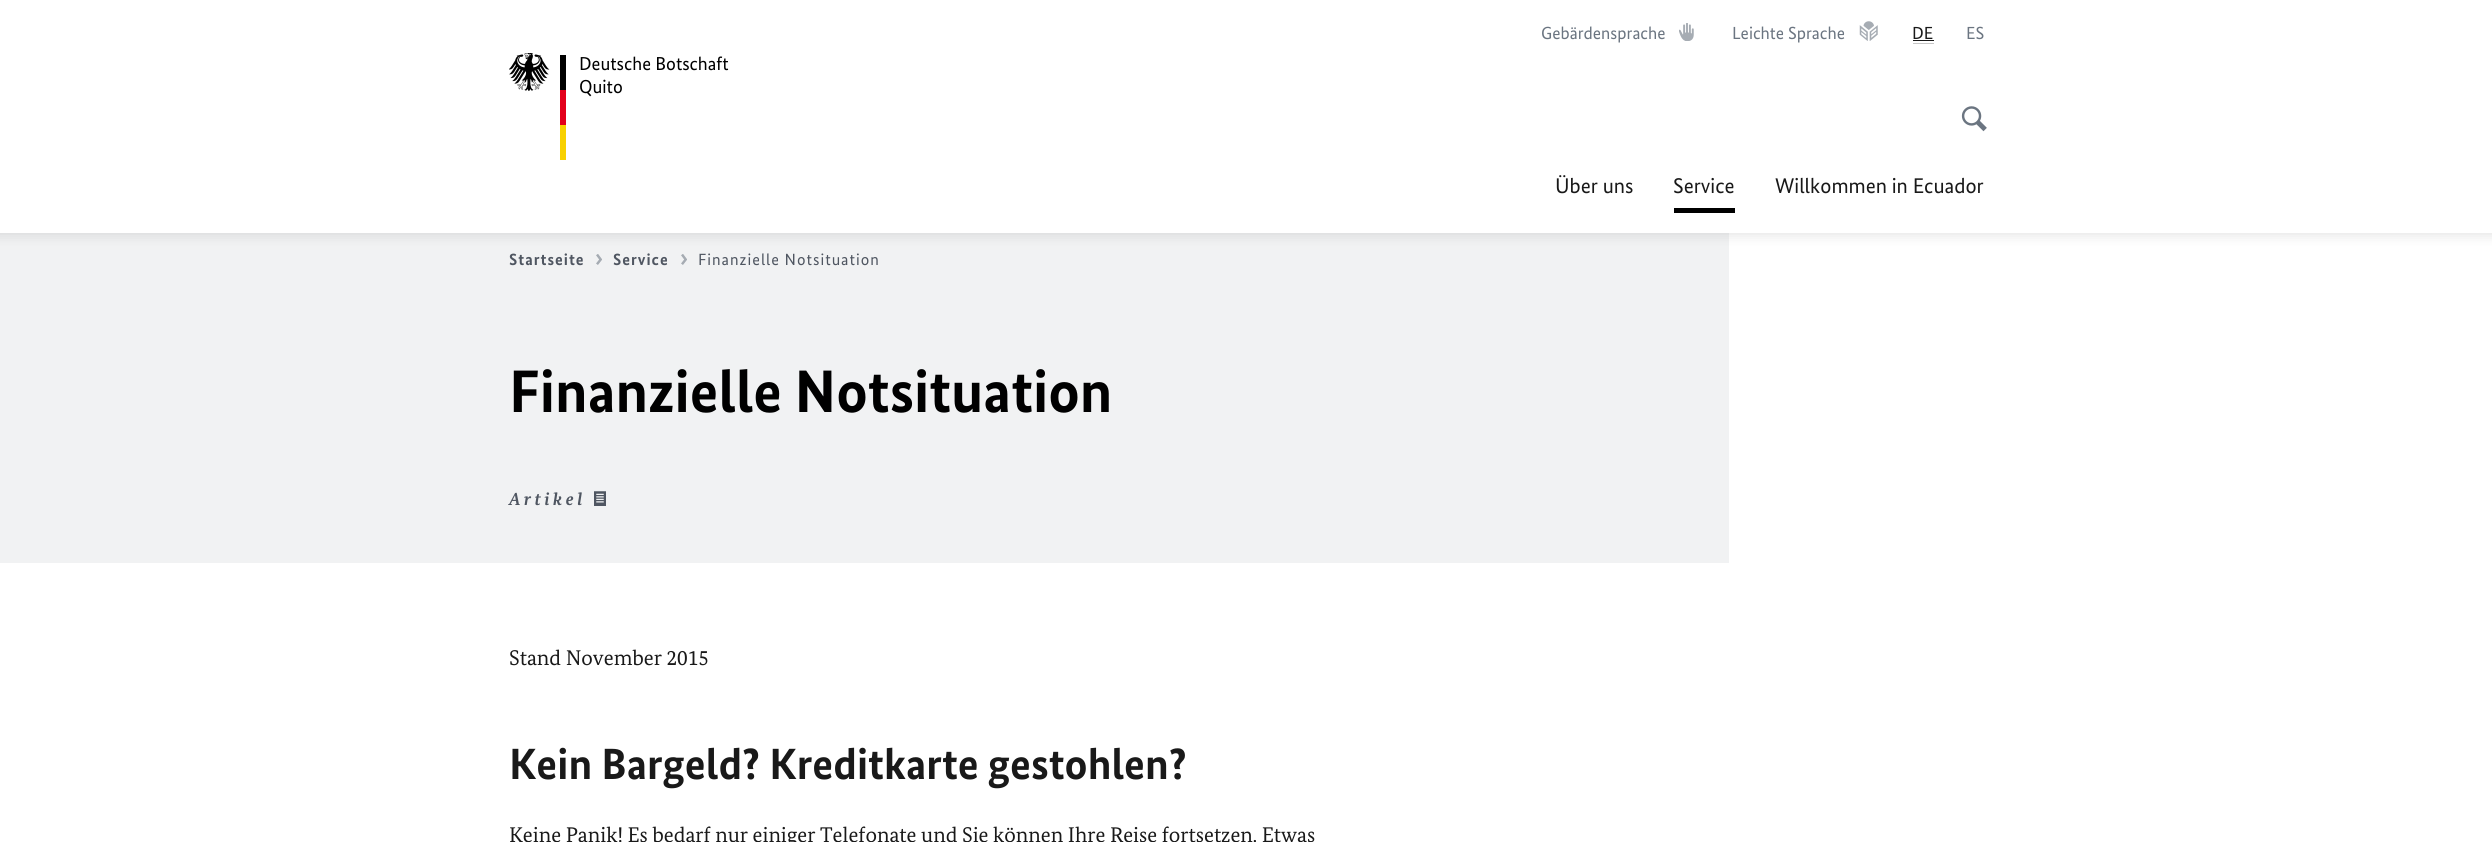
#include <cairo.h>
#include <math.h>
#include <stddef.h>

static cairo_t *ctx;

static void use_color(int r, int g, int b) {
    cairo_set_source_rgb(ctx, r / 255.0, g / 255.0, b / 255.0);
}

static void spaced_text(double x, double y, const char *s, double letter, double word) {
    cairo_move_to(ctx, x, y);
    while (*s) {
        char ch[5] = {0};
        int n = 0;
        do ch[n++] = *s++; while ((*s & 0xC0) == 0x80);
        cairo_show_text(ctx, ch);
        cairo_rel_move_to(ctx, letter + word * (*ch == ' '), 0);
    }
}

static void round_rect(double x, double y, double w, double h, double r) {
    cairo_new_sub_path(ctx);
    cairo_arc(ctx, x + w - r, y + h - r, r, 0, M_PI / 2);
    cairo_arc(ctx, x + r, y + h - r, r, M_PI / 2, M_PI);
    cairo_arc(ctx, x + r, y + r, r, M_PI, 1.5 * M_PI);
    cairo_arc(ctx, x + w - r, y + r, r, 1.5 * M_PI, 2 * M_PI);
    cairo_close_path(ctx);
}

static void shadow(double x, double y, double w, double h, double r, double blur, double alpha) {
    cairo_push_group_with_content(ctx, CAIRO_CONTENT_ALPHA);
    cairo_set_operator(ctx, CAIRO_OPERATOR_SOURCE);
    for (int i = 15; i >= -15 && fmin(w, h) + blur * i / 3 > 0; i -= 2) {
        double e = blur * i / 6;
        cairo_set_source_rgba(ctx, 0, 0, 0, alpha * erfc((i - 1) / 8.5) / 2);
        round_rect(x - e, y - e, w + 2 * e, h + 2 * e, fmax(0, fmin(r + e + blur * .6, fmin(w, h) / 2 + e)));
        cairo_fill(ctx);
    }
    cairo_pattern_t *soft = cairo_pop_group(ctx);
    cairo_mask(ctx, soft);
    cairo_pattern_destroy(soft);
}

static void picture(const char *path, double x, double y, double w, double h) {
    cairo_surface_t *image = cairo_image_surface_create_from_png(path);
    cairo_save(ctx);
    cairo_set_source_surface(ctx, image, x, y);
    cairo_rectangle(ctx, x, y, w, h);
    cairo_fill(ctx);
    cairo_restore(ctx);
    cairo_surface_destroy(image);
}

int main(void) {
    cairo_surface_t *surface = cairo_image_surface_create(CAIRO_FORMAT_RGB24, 2492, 842);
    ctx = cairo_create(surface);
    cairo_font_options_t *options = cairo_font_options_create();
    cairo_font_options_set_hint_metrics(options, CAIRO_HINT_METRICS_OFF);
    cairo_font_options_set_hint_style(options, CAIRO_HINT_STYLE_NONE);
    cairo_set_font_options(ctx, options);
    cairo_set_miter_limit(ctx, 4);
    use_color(255, 255, 255);
    cairo_paint(ctx);
    use_color(241, 242, 243);
    cairo_rectangle(ctx, 0, 233, 1729, 330);
    cairo_fill(ctx);
    cairo_save(ctx);
    cairo_set_fill_rule(ctx, CAIRO_FILL_RULE_EVEN_ODD);
    cairo_new_path(ctx);
    cairo_move_to(ctx, 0, 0);
    cairo_line_to(ctx, 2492, 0);
    cairo_line_to(ctx, 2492, 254);
    cairo_line_to(ctx, 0, 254);
    cairo_close_path(ctx);
    cairo_move_to(ctx, 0, 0);
    cairo_line_to(ctx, 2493, 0);
    cairo_line_to(ctx, 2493, 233);
    cairo_line_to(ctx, 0, 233);
    cairo_close_path(ctx);
    cairo_clip(ctx);
    use_color(0, 0, 0);
    shadow(-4, -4, 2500, 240, 0, 5.5, 0.1);
    cairo_restore(ctx);
    picture("img1.png", 509, 53, 57, 107);
    cairo_select_font_face(ctx, "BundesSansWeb", CAIRO_FONT_SLANT_NORMAL, CAIRO_FONT_WEIGHT_NORMAL);
    cairo_set_font_size(ctx, 18.75);
    use_color(0, 0, 0);
    cairo_move_to(ctx, 579, 70);
    cairo_show_text(ctx, "Deutsche Botschaft");
    cairo_move_to(ctx, 579, 93);
    cairo_show_text(ctx, "Quito");
    cairo_set_font_size(ctx, 17.5);
    use_color(107, 117, 129);
    cairo_move_to(ctx, 1541, 39);
    cairo_show_text(ctx, "Gebärdensprache");
    picture("img2.png", 1679, 23, 15, 18);
    cairo_move_to(ctx, 1732, 39);
    cairo_show_text(ctx, "Leichte Sprache");
    picture("img3.png", 1859, 21, 19, 20);
    use_color(25, 25, 25);
    cairo_move_to(ctx, 1912, 39);
    cairo_show_text(ctx, "DE");
    cairo_rectangle(ctx, 1913, 40, 21, 1);
    cairo_fill(ctx);
    use_color(198, 198, 198);
    cairo_rectangle(ctx, 1913, 43, 21, 1);
    cairo_fill(ctx);
    use_color(107, 117, 129);
    cairo_move_to(ctx, 1966, 39);
    cairo_show_text(ctx, "ES");
    picture("img4.png", 1961, 106, 26, 26);
    cairo_set_font_size(ctx, 21.25);
    use_color(25, 25, 25);
    cairo_move_to(ctx, 1555, 193);
    cairo_show_text(ctx, "Über uns");
    cairo_move_to(ctx, 1673, 193);
    cairo_show_text(ctx, "Service");
    use_color(0, 0, 0);
    cairo_rectangle(ctx, 1674, 208, 61, 5);
    cairo_fill(ctx);
    use_color(25, 25, 25);
    cairo_move_to(ctx, 1775, 193);
    cairo_show_text(ctx, "Willkommen in Ecuador");
    cairo_select_font_face(ctx, "BundesSansWeb", CAIRO_FONT_SLANT_NORMAL, CAIRO_FONT_WEIGHT_BOLD);
    cairo_set_font_size(ctx, 16.25);
    use_color(79, 86, 97);
    spaced_text(509, 265, "Startseite", 1, 0);
    picture("img5.png", 596, 254, 6, 11);
    spaced_text(613, 265, "Service", 1, 0);
    picture("img5.png", 681, 254, 6, 11);
    cairo_select_font_face(ctx, "BundesSansWeb", CAIRO_FONT_SLANT_NORMAL, CAIRO_FONT_WEIGHT_NORMAL);
    spaced_text(698, 265, "Finanzielle Notsituation", 1, 0);
    cairo_select_font_face(ctx, "BundesSansWeb", CAIRO_FONT_SLANT_NORMAL, CAIRO_FONT_WEIGHT_BOLD);
    cairo_set_font_size(ctx, 60);
    use_color(0, 0, 0);
    cairo_move_to(ctx, 509, 412);
    cairo_show_text(ctx, "Finanzielle Notsituation");
    cairo_select_font_face(ctx, "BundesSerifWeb", CAIRO_FONT_SLANT_ITALIC, CAIRO_FONT_WEIGHT_BOLD);
    cairo_set_font_size(ctx, 17.5);
    use_color(79, 86, 97);
    spaced_text(509, 505, "Artikel", 3.5, 0);
    picture("img6.png", 594, 491, 12, 15);
    cairo_select_font_face(ctx, "BundesSerifWeb", CAIRO_FONT_SLANT_NORMAL, CAIRO_FONT_WEIGHT_NORMAL);
    cairo_set_font_size(ctx, 21.25);
    use_color(25, 25, 25);
    cairo_move_to(ctx, 509, 665);
    cairo_show_text(ctx, "Stand November 2015");
    cairo_select_font_face(ctx, "BundesSansWeb", CAIRO_FONT_SLANT_NORMAL, CAIRO_FONT_WEIGHT_BOLD);
    cairo_set_font_size(ctx, 43.75);
    cairo_move_to(ctx, 509, 779);
    cairo_show_text(ctx, "Kein Bargeld? Kreditkarte gestohlen?");
    cairo_select_font_face(ctx, "BundesSerifWeb", CAIRO_FONT_SLANT_NORMAL, CAIRO_FONT_WEIGHT_NORMAL);
    cairo_set_font_size(ctx, 21.25);
    cairo_move_to(ctx, 509, 842);
    cairo_show_text(ctx, "Keine Panik! Es bedarf nur einiger Telefonate und Sie können Ihre Reise fortsetzen. Etwas");
    cairo_surface_write_to_png(surface, "result.png");
    cairo_font_options_destroy(options);
    cairo_destroy(ctx);
    cairo_surface_destroy(surface);
    return 0;
}
